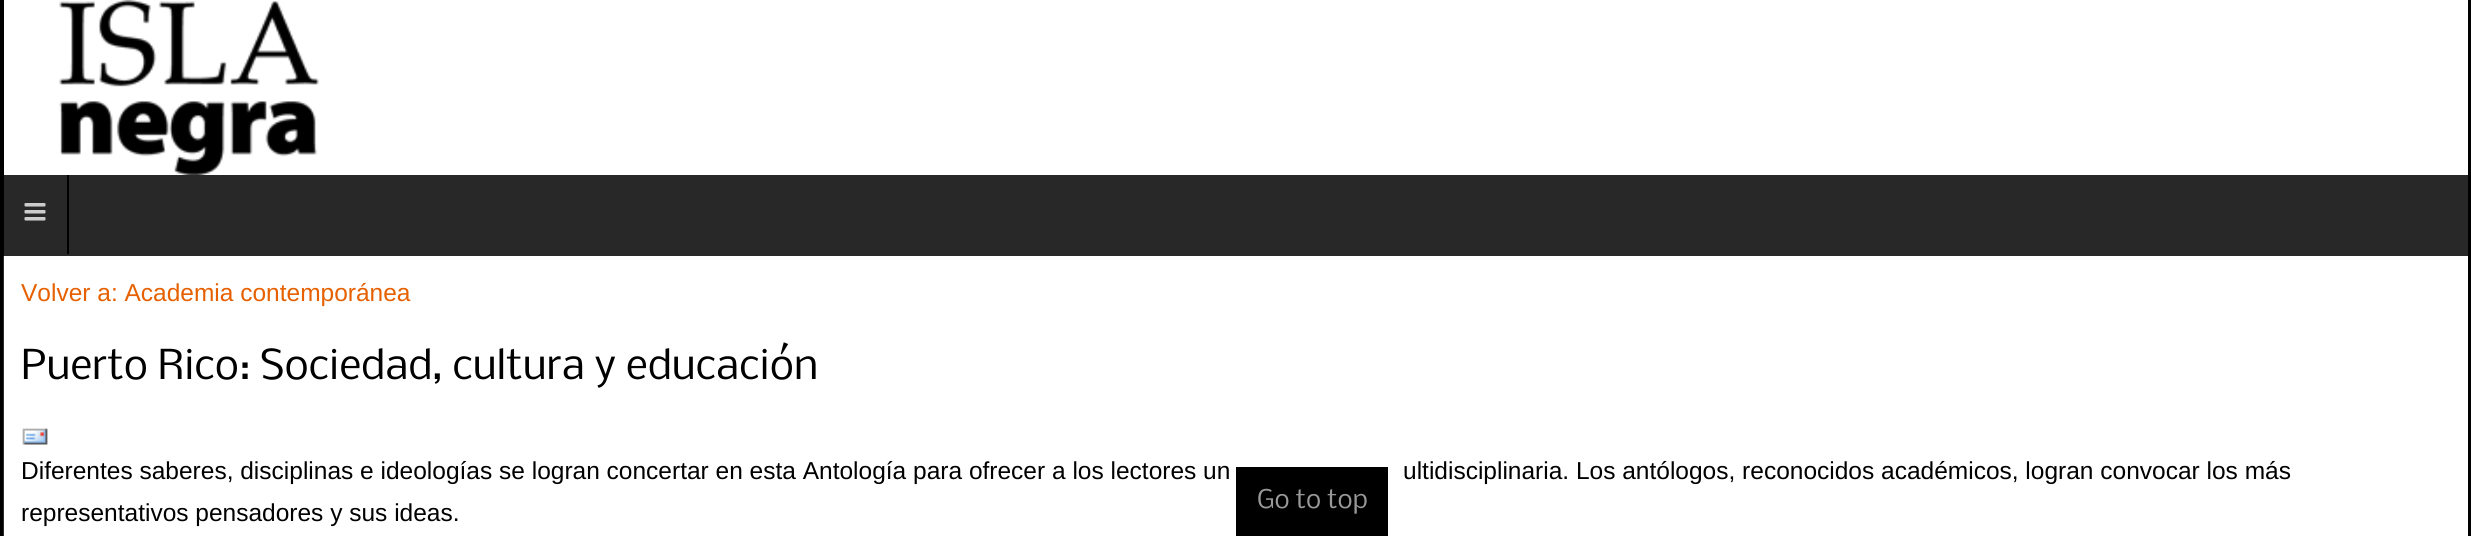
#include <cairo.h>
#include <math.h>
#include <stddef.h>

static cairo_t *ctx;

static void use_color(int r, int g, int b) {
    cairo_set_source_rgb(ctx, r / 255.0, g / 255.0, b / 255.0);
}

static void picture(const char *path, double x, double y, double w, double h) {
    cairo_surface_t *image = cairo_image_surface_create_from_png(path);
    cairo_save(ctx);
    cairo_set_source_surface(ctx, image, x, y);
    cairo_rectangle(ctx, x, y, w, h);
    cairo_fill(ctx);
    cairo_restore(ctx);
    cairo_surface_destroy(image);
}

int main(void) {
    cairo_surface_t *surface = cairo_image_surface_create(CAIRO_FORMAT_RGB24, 2471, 536);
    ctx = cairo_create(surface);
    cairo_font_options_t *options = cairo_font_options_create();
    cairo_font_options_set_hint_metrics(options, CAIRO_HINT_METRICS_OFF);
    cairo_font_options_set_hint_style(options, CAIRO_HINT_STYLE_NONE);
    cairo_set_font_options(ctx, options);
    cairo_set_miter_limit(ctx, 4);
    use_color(0, 0, 0);
    cairo_paint(ctx);
    use_color(255, 255, 255);
    cairo_rectangle(ctx, 4, 0, 2464, 175);
    cairo_fill(ctx);
    picture("img1.png", 59, 0, 260, 175);
    use_color(40, 40, 40);
    cairo_rectangle(ctx, 4, 175, 2464, 81);
    cairo_fill(ctx);
    use_color(0, 0, 0);
    cairo_rectangle(ctx, 67, 175, 2, 79);
    cairo_fill(ctx);
    picture("img2.png", 24, 203, 22, 18);
    picture("img3.png", 3, 255, 1, 281);
    use_color(255, 255, 255);
    cairo_rectangle(ctx, 4, 256, 2464, 280);
    cairo_fill(ctx);
    cairo_select_font_face(ctx, "Liberation Sans", CAIRO_FONT_SLANT_NORMAL, CAIRO_FONT_WEIGHT_NORMAL);
    cairo_set_font_size(ctx, 24.5);
    use_color(230, 96, 0);
    cairo_move_to(ctx, 21, 301);
    cairo_show_text(ctx, "Volver a: Academia contemporánea");
    cairo_select_font_face(ctx, "Nobile", CAIRO_FONT_SLANT_NORMAL, CAIRO_FONT_WEIGHT_NORMAL);
    cairo_set_font_size(ctx, 39.2);
    use_color(0, 0, 0);
    cairo_move_to(ctx, 21, 379);
    cairo_show_text(ctx, "Puerto Rico: Sociedad, cultura y educación");
    picture("img4.png", 22, 428, 26, 17);
    cairo_select_font_face(ctx, "Liberation Sans", CAIRO_FONT_SLANT_NORMAL, CAIRO_FONT_WEIGHT_NORMAL);
    cairo_set_font_size(ctx, 24.5);
    cairo_move_to(ctx, 21, 479);
    cairo_show_text(ctx, "Diferentes saberes, disciplinas e ideologías se logran concertar en esta Antología para ofrecer a los lectores un");
    cairo_move_to(ctx, 1403, 479);
    cairo_show_text(ctx, "ultidisciplinaria. Los antólogos, reconocidos académicos, logran convocar los más");
    cairo_move_to(ctx, 21, 521);
    cairo_show_text(ctx, "representativos pensadores y sus ideas.");
    cairo_rectangle(ctx, 1236, 467, 152, 69);
    cairo_fill(ctx);
    cairo_select_font_face(ctx, "Nobile", CAIRO_FONT_SLANT_NORMAL, CAIRO_FONT_WEIGHT_NORMAL);
    use_color(153, 153, 153);
    cairo_move_to(ctx, 1257, 508);
    cairo_show_text(ctx, "Go to top");
    cairo_surface_write_to_png(surface, "result.png");
    cairo_font_options_destroy(options);
    cairo_destroy(ctx);
    cairo_surface_destroy(surface);
    return 0;
}
